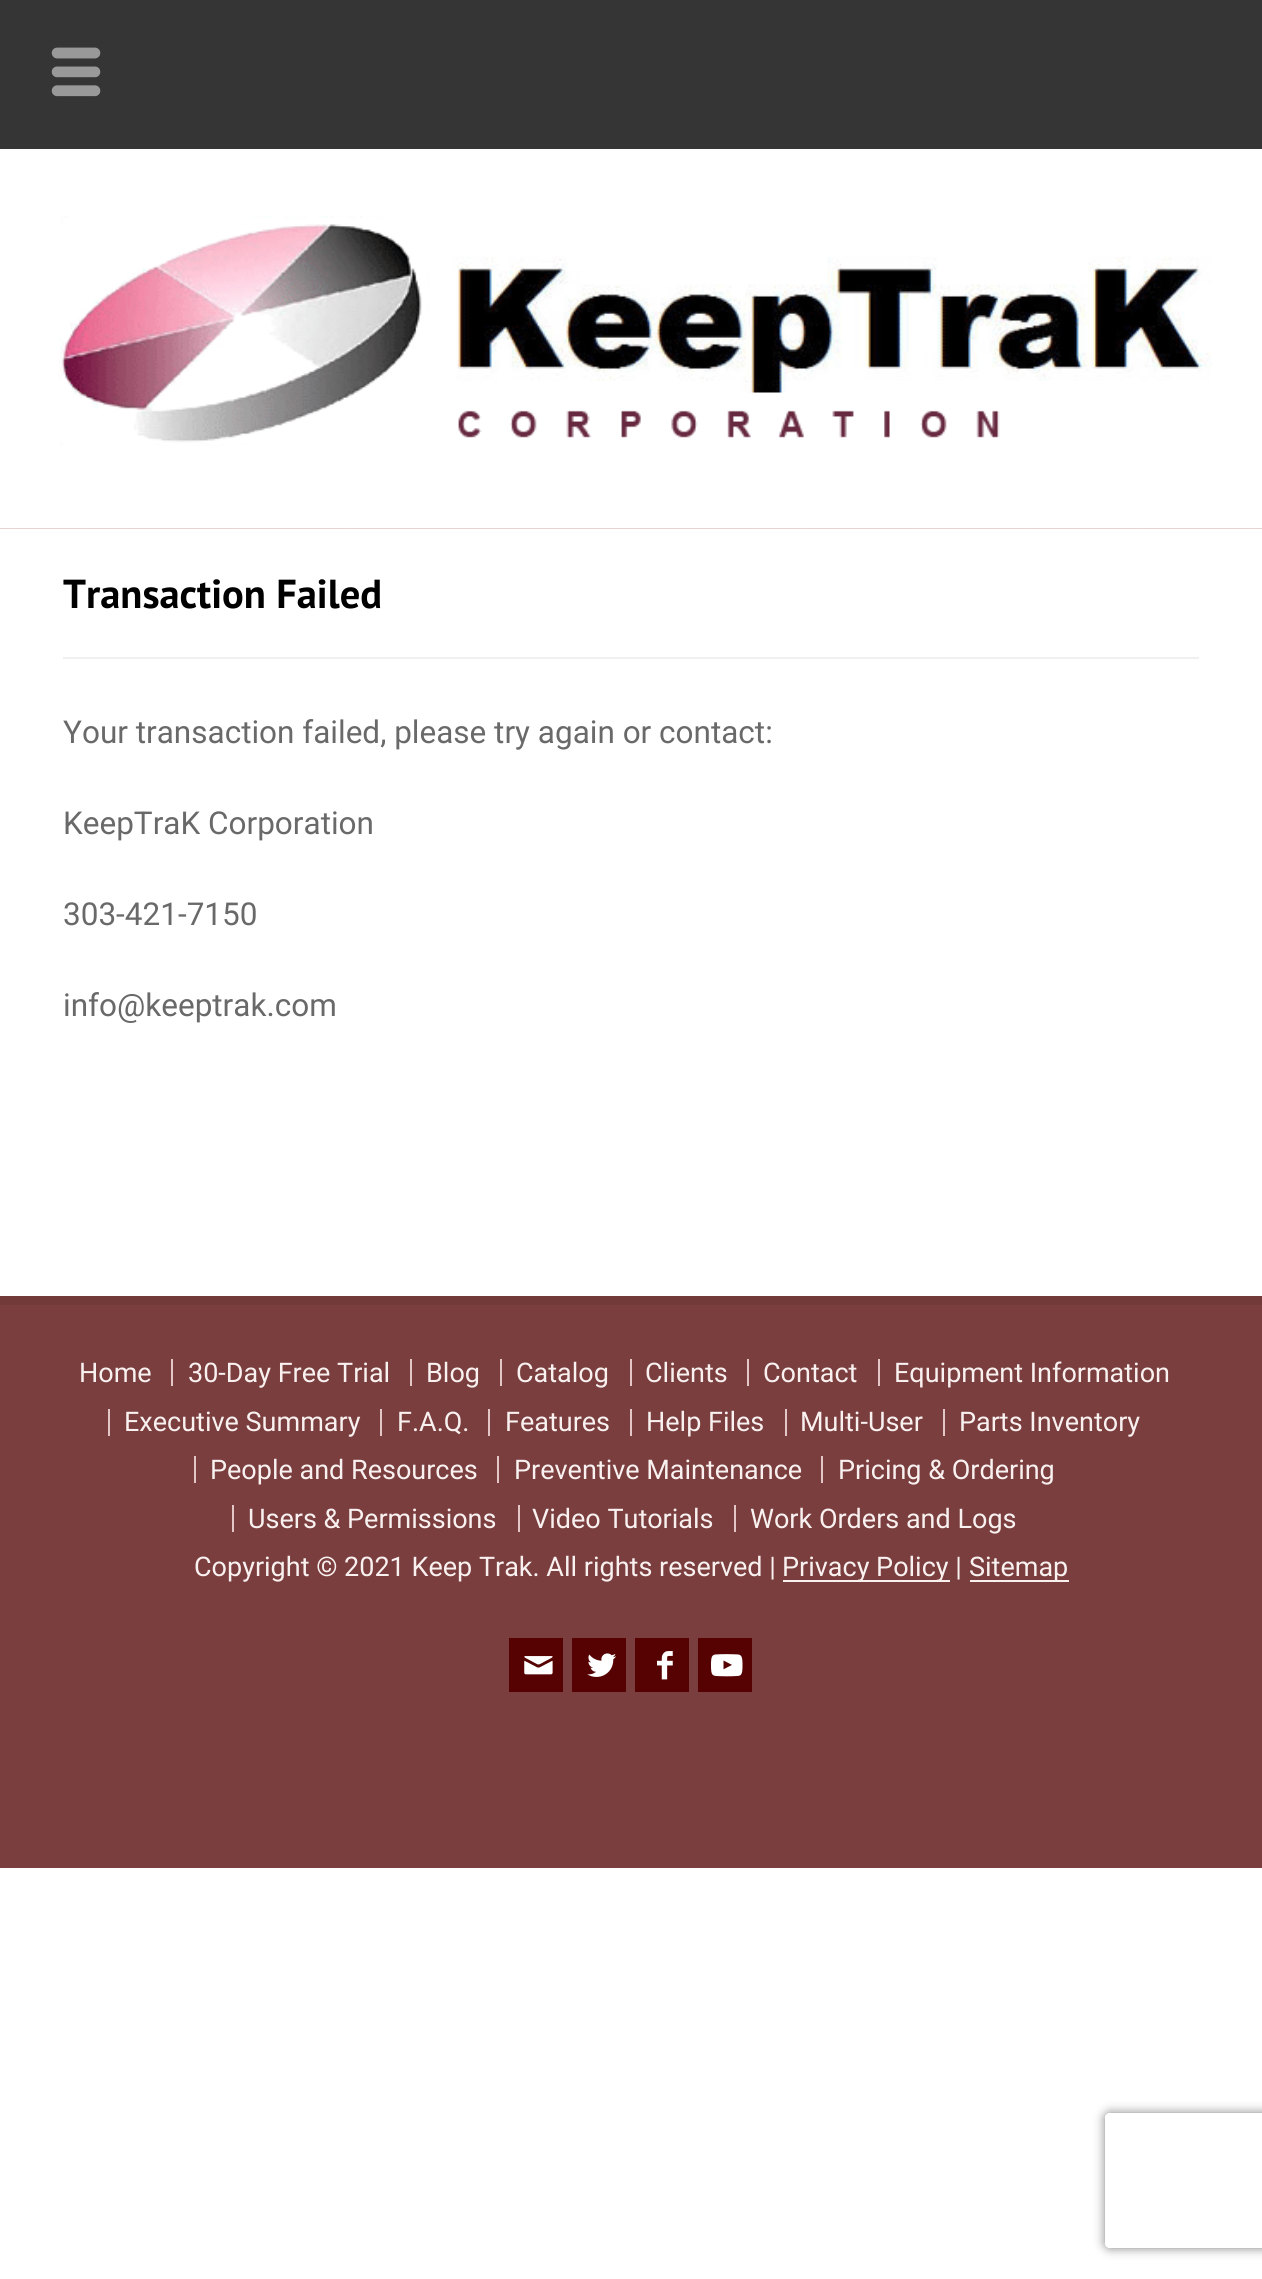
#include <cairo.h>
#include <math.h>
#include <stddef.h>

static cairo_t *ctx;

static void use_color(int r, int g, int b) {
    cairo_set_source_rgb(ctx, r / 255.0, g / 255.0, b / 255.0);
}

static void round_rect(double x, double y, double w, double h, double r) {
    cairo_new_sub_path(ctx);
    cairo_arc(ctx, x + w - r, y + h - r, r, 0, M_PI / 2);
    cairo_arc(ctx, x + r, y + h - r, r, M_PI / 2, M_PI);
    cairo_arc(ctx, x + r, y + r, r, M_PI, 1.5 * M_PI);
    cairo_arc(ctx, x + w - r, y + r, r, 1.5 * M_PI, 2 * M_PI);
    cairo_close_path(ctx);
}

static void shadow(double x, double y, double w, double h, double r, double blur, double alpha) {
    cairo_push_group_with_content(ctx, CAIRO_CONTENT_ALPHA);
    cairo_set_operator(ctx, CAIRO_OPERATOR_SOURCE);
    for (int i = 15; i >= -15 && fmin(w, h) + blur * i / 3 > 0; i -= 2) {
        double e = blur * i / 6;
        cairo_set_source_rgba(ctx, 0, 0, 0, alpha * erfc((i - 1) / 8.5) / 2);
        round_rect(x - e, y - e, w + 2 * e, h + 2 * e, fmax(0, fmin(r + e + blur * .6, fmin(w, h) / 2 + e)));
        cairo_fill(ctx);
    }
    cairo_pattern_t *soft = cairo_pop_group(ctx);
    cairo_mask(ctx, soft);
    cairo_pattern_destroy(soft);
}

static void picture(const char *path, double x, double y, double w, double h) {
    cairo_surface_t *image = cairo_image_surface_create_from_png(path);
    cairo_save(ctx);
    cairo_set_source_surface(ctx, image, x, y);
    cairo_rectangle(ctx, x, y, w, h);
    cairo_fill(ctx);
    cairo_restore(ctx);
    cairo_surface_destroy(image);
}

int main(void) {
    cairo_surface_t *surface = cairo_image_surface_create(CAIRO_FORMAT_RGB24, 1262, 2279);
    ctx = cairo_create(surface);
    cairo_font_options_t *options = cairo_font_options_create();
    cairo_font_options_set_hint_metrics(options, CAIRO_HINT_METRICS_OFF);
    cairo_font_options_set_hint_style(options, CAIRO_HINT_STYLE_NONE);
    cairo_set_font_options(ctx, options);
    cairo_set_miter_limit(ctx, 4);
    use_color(255, 255, 255);
    cairo_paint(ctx);
    use_color(53, 53, 53);
    cairo_rectangle(ctx, 0, 0, 1262, 149);
    cairo_fill(ctx);
    picture("img1.png", 51, 47, 50, 50);
    picture("img2.png", 59, 216, 1153, 230);
    picture("img3.png", 0, 528, 1262, 1);
    use_color(240, 240, 240);
    cairo_rectangle(ctx, 63, 657, 1136, 2);
    cairo_fill(ctx);
    cairo_select_font_face(ctx, "PT Sans", CAIRO_FONT_SLANT_NORMAL, CAIRO_FONT_WEIGHT_BOLD);
    cairo_set_font_size(ctx, 40.5);
    use_color(0, 0, 0);
    cairo_move_to(ctx, 63, 608);
    cairo_show_text(ctx, "Transaction Failed");
    cairo_select_font_face(ctx, "Roboto", CAIRO_FONT_SLANT_NORMAL, CAIRO_FONT_WEIGHT_NORMAL);
    cairo_set_font_size(ctx, 31.5);
    use_color(105, 105, 105);
    cairo_move_to(ctx, 63, 743);
    cairo_show_text(ctx, "Your transaction failed, please try again or contact:");
    cairo_move_to(ctx, 63, 834);
    cairo_show_text(ctx, "KeepTraK Corporation");
    cairo_move_to(ctx, 63, 925);
    cairo_show_text(ctx, "303-421-7150");
    cairo_move_to(ctx, 63, 1016);
    cairo_show_text(ctx, "info@keeptrak.com");
    use_color(122, 62, 62);
    cairo_rectangle(ctx, 0, 1305, 1262, 563);
    cairo_fill(ctx);
    use_color(115, 58, 58);
    cairo_rectangle(ctx, 0, 1296, 1262, 9);
    cairo_fill(ctx);
    cairo_set_font_size(ctx, 27);
    use_color(249, 240, 240);
    cairo_move_to(ctx, 79, 1382);
    cairo_show_text(ctx, "Home");
    use_color(227, 198, 198);
    cairo_rectangle(ctx, 171, 1359, 2, 27);
    cairo_fill(ctx);
    use_color(249, 240, 240);
    cairo_move_to(ctx, 188, 1382);
    cairo_show_text(ctx, "30-Day Free Trial");
    use_color(227, 198, 198);
    cairo_rectangle(ctx, 410, 1359, 2, 27);
    cairo_fill(ctx);
    use_color(249, 240, 240);
    cairo_move_to(ctx, 426, 1382);
    cairo_show_text(ctx, "Blog");
    use_color(227, 198, 198);
    cairo_rectangle(ctx, 500, 1359, 2, 27);
    cairo_fill(ctx);
    use_color(249, 240, 240);
    cairo_move_to(ctx, 516, 1382);
    cairo_show_text(ctx, "Catalog");
    use_color(227, 198, 198);
    cairo_rectangle(ctx, 630, 1359, 2, 27);
    cairo_fill(ctx);
    use_color(249, 240, 240);
    cairo_move_to(ctx, 645, 1382);
    cairo_show_text(ctx, "Clients");
    use_color(227, 198, 198);
    cairo_rectangle(ctx, 747, 1359, 2, 27);
    cairo_fill(ctx);
    use_color(249, 240, 240);
    cairo_move_to(ctx, 763, 1382);
    cairo_show_text(ctx, "Contact");
    use_color(227, 198, 198);
    cairo_rectangle(ctx, 878, 1359, 2, 27);
    cairo_fill(ctx);
    use_color(249, 240, 240);
    cairo_move_to(ctx, 894, 1382);
    cairo_show_text(ctx, "Equipment Information");
    use_color(227, 198, 198);
    cairo_rectangle(ctx, 108, 1409, 2, 27);
    cairo_fill(ctx);
    use_color(249, 240, 240);
    cairo_move_to(ctx, 124, 1431);
    cairo_show_text(ctx, "Executive Summary");
    use_color(227, 198, 198);
    cairo_rectangle(ctx, 380, 1409, 2, 27);
    cairo_fill(ctx);
    use_color(249, 240, 240);
    cairo_move_to(ctx, 397, 1431);
    cairo_show_text(ctx, "F.A.Q.");
    use_color(227, 198, 198);
    cairo_rectangle(ctx, 488, 1409, 2, 27);
    cairo_fill(ctx);
    use_color(249, 240, 240);
    cairo_move_to(ctx, 505, 1431);
    cairo_show_text(ctx, "Features");
    use_color(227, 198, 198);
    cairo_rectangle(ctx, 630, 1409, 2, 27);
    cairo_fill(ctx);
    use_color(249, 240, 240);
    cairo_move_to(ctx, 646, 1431);
    cairo_show_text(ctx, "Help Files");
    use_color(227, 198, 198);
    cairo_rectangle(ctx, 785, 1409, 2, 27);
    cairo_fill(ctx);
    use_color(249, 240, 240);
    cairo_move_to(ctx, 800, 1431);
    cairo_show_text(ctx, "Multi-User");
    use_color(227, 198, 198);
    cairo_rectangle(ctx, 943, 1409, 2, 27);
    cairo_fill(ctx);
    use_color(249, 240, 240);
    cairo_move_to(ctx, 959, 1431);
    cairo_show_text(ctx, "Parts Inventory");
    use_color(227, 198, 198);
    cairo_rectangle(ctx, 194, 1456, 2, 27);
    cairo_fill(ctx);
    use_color(249, 240, 240);
    cairo_move_to(ctx, 210, 1479);
    cairo_show_text(ctx, "People and Resources");
    use_color(227, 198, 198);
    cairo_rectangle(ctx, 497, 1456, 2, 27);
    cairo_fill(ctx);
    use_color(249, 240, 240);
    cairo_move_to(ctx, 514, 1479);
    cairo_show_text(ctx, "Preventive Maintenance");
    use_color(227, 198, 198);
    cairo_rectangle(ctx, 821, 1456, 2, 27);
    cairo_fill(ctx);
    use_color(249, 240, 240);
    cairo_move_to(ctx, 838, 1479);
    cairo_show_text(ctx, "Pricing & Ordering");
    use_color(227, 198, 198);
    cairo_rectangle(ctx, 232, 1505, 2, 27);
    cairo_fill(ctx);
    use_color(249, 240, 240);
    cairo_move_to(ctx, 248, 1528);
    cairo_show_text(ctx, "Users & Permissions");
    use_color(227, 198, 198);
    cairo_rectangle(ctx, 518, 1505, 2, 27);
    cairo_fill(ctx);
    use_color(249, 240, 240);
    cairo_move_to(ctx, 532, 1528);
    cairo_show_text(ctx, "Video Tutorials");
    use_color(227, 198, 198);
    cairo_rectangle(ctx, 734, 1505, 2, 27);
    cairo_fill(ctx);
    use_color(249, 240, 240);
    cairo_move_to(ctx, 750, 1528);
    cairo_show_text(ctx, "Work Orders and Logs");
    cairo_move_to(ctx, 194, 1576);
    cairo_show_text(ctx, "Copyright © 2021 Keep Trak. All rights reserved |");
    cairo_rectangle(ctx, 783, 1580, 167, 2);
    cairo_fill(ctx);
    cairo_move_to(ctx, 782, 1576);
    cairo_show_text(ctx, "Privacy Policy |");
    cairo_rectangle(ctx, 970, 1580, 99, 2);
    cairo_fill(ctx);
    cairo_move_to(ctx, 969, 1576);
    cairo_show_text(ctx, "Sitemap");
    use_color(86, 2, 2);
    cairo_rectangle(ctx, 509, 1638, 54, 54);
    cairo_fill(ctx);
    picture("img4.png", 524, 1656, 29, 19);
    cairo_rectangle(ctx, 572, 1638, 54, 54);
    cairo_fill(ctx);
    picture("img5.png", 587, 1653, 30, 24);
    cairo_rectangle(ctx, 635, 1638, 54, 54);
    cairo_fill(ctx);
    picture("img6.png", 657, 1651, 16, 29);
    cairo_rectangle(ctx, 698, 1638, 54, 54);
    cairo_fill(ctx);
    picture("img7.png", 711, 1654, 32, 23);
    cairo_save(ctx);
    cairo_set_fill_rule(ctx, CAIRO_FILL_RULE_EVEN_ODD);
    cairo_new_path(ctx);
    cairo_move_to(ctx, 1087, 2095);
    cairo_line_to(ctx, 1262, 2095);
    cairo_line_to(ctx, 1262, 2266);
    cairo_line_to(ctx, 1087, 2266);
    cairo_close_path(ctx);
    cairo_move_to(ctx, 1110, 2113);
    cairo_line_to(ctx, 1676, 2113);
    cairo_curve_to(ctx, 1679, 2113, 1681, 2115, 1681, 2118);
    cairo_line_to(ctx, 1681, 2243);
    cairo_curve_to(ctx, 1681, 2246, 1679, 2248, 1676, 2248);
    cairo_line_to(ctx, 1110, 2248);
    cairo_curve_to(ctx, 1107, 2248, 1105, 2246, 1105, 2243);
    cairo_line_to(ctx, 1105, 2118);
    cairo_curve_to(ctx, 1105, 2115, 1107, 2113, 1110, 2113);
    cairo_close_path(ctx);
    cairo_clip(ctx);
    use_color(128, 128, 128);
    shadow(1105, 2113, 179, 135, 5, 5.5, 1);
    cairo_restore(ctx);
    cairo_surface_write_to_png(surface, "result.png");
    cairo_font_options_destroy(options);
    cairo_destroy(ctx);
    cairo_surface_destroy(surface);
    return 0;
}
